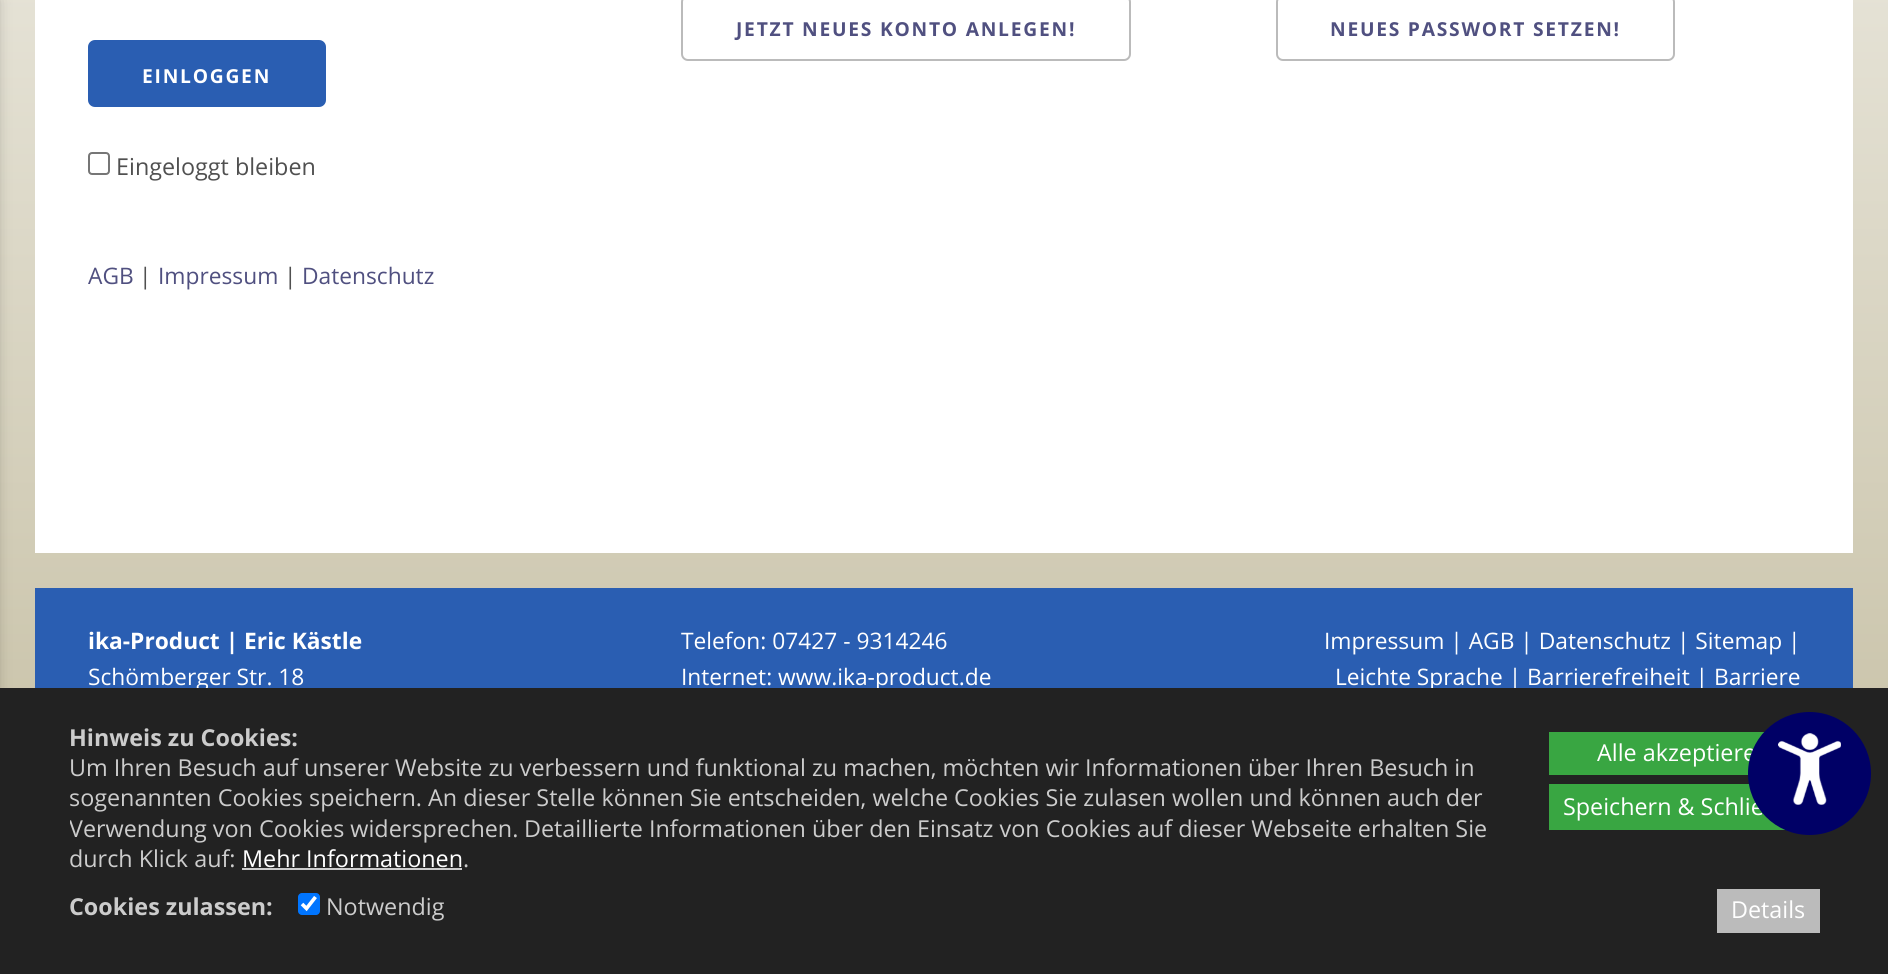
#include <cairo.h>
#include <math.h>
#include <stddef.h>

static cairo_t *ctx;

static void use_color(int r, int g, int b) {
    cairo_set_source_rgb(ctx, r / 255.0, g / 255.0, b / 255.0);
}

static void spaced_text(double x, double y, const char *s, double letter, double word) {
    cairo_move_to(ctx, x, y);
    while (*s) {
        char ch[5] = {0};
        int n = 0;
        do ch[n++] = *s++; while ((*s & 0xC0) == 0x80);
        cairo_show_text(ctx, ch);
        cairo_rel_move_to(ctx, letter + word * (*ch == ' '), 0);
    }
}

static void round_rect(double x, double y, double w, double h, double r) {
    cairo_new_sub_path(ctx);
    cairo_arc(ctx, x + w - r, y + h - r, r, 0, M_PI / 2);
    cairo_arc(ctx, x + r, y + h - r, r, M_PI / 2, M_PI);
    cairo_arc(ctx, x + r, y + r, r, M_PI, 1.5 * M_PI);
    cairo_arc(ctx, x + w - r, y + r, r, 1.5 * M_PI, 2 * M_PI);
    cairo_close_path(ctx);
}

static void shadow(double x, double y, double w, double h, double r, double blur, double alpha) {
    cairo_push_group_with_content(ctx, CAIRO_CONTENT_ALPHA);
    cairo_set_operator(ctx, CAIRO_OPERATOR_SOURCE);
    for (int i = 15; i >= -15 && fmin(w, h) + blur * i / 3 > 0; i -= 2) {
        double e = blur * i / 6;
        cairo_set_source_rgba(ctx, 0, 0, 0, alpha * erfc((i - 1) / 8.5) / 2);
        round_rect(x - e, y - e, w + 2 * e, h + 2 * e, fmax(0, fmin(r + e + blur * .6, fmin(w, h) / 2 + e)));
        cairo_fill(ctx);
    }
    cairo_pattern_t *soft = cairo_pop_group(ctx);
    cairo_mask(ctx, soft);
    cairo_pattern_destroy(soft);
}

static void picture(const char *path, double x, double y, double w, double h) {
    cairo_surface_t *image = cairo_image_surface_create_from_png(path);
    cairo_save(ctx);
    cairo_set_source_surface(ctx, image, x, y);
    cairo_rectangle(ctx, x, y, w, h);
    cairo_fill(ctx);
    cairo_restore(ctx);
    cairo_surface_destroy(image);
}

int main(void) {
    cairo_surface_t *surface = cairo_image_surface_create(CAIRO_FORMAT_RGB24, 1888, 974);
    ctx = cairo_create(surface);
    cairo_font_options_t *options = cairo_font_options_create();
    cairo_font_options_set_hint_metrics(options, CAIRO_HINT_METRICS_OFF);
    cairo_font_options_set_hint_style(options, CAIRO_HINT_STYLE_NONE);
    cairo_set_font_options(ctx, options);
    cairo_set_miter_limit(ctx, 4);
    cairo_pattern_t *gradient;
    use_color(255, 255, 255);
    cairo_paint(ctx);
    gradient = cairo_pattern_create_linear(944, -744, 944, 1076);
    cairo_pattern_add_color_stop_rgba(gradient, 0, 1, 1, 1, 1);
    cairo_pattern_add_color_stop_rgba(gradient, 0.96, 0.757, 0.729, 0.612, 1);
    cairo_set_source(ctx, gradient);
    cairo_pattern_destroy(gradient);
    cairo_rectangle(ctx, 0, 0, 1888, 688);
    cairo_fill(ctx);
    use_color(0, 0, 0);
    shadow(-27, 0, 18, 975, 0, 9, 0.5);
    use_color(255, 255, 255);
    cairo_rectangle(ctx, 35, 0, 1818, 553);
    cairo_fill(ctx);
    round_rect(682, -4, 448, 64, 6);
    use_color(187, 187, 187);
    cairo_stroke(ctx);
    cairo_select_font_face(ctx, "Open Sans", CAIRO_FONT_SLANT_NORMAL, CAIRO_FONT_WEIGHT_BOLD);
    cairo_set_font_size(ctx, 19.25);
    use_color(80, 80, 128);
    spaced_text(736, 36, "JETZT NEUES KONTO ANLEGEN!", 1.75, 0);
    round_rect(1277, -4, 397, 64, 6);
    use_color(187, 187, 187);
    cairo_stroke(ctx);
    use_color(80, 80, 128);
    spaced_text(1330, 36, "NEUES PASSWORT SETZEN!", 1.75, 0);
    use_color(42, 94, 178);
    round_rect(89, 41, 236, 65, 6);
    cairo_fill_preserve(ctx);
    cairo_stroke(ctx);
    use_color(255, 255, 255);
    spaced_text(142, 83, "EINLOGGEN", 1.75, 0);
    round_rect(89, 153, 20, 21, 3);
    use_color(118, 118, 118);
    cairo_stroke(ctx);
    cairo_select_font_face(ctx, "Open Sans", CAIRO_FONT_SLANT_NORMAL, CAIRO_FONT_WEIGHT_NORMAL);
    cairo_set_font_size(ctx, 23.33);
    use_color(80, 80, 80);
    cairo_move_to(ctx, 116, 175);
    cairo_show_text(ctx, "Eingeloggt bleiben");
    cairo_set_font_size(ctx, 22.75);
    use_color(80, 80, 128);
    cairo_move_to(ctx, 88, 284);
    cairo_show_text(ctx, "AGB");
    use_color(80, 80, 80);
    cairo_move_to(ctx, 139, 284);
    cairo_show_text(ctx, "|");
    use_color(80, 80, 128);
    cairo_move_to(ctx, 158, 284);
    cairo_show_text(ctx, "Impressum");
    use_color(80, 80, 80);
    cairo_move_to(ctx, 284, 284);
    cairo_show_text(ctx, "|");
    use_color(80, 80, 128);
    cairo_move_to(ctx, 302, 284);
    cairo_show_text(ctx, "Datenschutz");
    use_color(42, 94, 178);
    cairo_rectangle(ctx, 35, 588, 1818, 100);
    cairo_fill(ctx);
    cairo_select_font_face(ctx, "Open Sans", CAIRO_FONT_SLANT_NORMAL, CAIRO_FONT_WEIGHT_BOLD);
    use_color(255, 255, 255);
    cairo_move_to(ctx, 88, 649);
    cairo_show_text(ctx, "ika-Product | Eric Kästle");
    cairo_select_font_face(ctx, "Open Sans", CAIRO_FONT_SLANT_NORMAL, CAIRO_FONT_WEIGHT_NORMAL);
    cairo_move_to(ctx, 88, 685);
    cairo_show_text(ctx, "Schömberger Str. 18");
    cairo_move_to(ctx, 681, 649);
    cairo_show_text(ctx, "Telefon: 07427 - 9314246");
    cairo_move_to(ctx, 681, 685);
    cairo_show_text(ctx, "Internet: www.ika-product.de");
    cairo_move_to(ctx, 1324, 649);
    cairo_show_text(ctx, "Impressum | AGB | Datenschutz | Sitemap |");
    cairo_move_to(ctx, 1335, 685);
    cairo_show_text(ctx, "Leichte Sprache | Barrierefreiheit | Barriere");
    use_color(34, 34, 34);
    cairo_rectangle(ctx, 0, 688, 1888, 286);
    cairo_fill(ctx);
    cairo_select_font_face(ctx, "Open Sans", CAIRO_FONT_SLANT_NORMAL, CAIRO_FONT_WEIGHT_BOLD);
    cairo_set_font_size(ctx, 23.33);
    use_color(204, 204, 204);
    cairo_move_to(ctx, 69, 746);
    cairo_show_text(ctx, "Hinweis zu Cookies:");
    cairo_select_font_face(ctx, "Open Sans", CAIRO_FONT_SLANT_NORMAL, CAIRO_FONT_WEIGHT_NORMAL);
    cairo_move_to(ctx, 69, 776);
    cairo_show_text(ctx, "Um Ihren Besuch auf unserer Website zu verbessern und funktional zu machen, möchten wir Informationen über Ihren Besuch in");
    cairo_move_to(ctx, 69, 806);
    cairo_show_text(ctx, "sogenannten Cookies speichern. An dieser Stelle können Sie entscheiden, welche Cookies Sie zulasen wollen und können auch der");
    cairo_save(ctx);
    cairo_rectangle(ctx, 70, 723, 1444, 152);
    cairo_clip(ctx);
    cairo_move_to(ctx, 69, 837);
    cairo_show_text(ctx, "Verwendung von Cookies widersprechen.");
    cairo_restore(ctx);
    cairo_move_to(ctx, 524, 837);
    cairo_show_text(ctx, "Detaillierte Informationen über den Einsatz von Cookies auf dieser Webseite erhalten Sie");
    cairo_move_to(ctx, 69, 867);
    cairo_show_text(ctx, "durch Klick auf:");
    use_color(255, 255, 255);
    cairo_move_to(ctx, 242, 867);
    cairo_show_text(ctx, "Mehr Informationen");
    use_color(204, 204, 204);
    cairo_rectangle(ctx, 242, 868, 220, 2);
    cairo_fill(ctx);
    cairo_move_to(ctx, 463, 867);
    cairo_show_text(ctx, ".");
    use_color(57, 166, 66);
    cairo_rectangle(ctx, 1549, 732, 216, 43);
    cairo_fill(ctx);
    use_color(255, 255, 255);
    cairo_move_to(ctx, 1597, 761);
    cairo_show_text(ctx, "Alle akzeptiere");
    use_color(57, 166, 66);
    cairo_rectangle(ctx, 1549, 784, 237, 46);
    cairo_fill(ctx);
    use_color(255, 255, 255);
    cairo_move_to(ctx, 1563, 815);
    cairo_show_text(ctx, "Speichern & Schlie");
    cairo_select_font_face(ctx, "Open Sans", CAIRO_FONT_SLANT_NORMAL, CAIRO_FONT_WEIGHT_BOLD);
    use_color(204, 204, 204);
    cairo_move_to(ctx, 69, 915);
    cairo_show_text(ctx, "Cookies zulassen:");
    use_color(0, 117, 255);
    round_rect(298, 893, 22, 22, 4);
    cairo_fill(ctx);
    cairo_new_path(ctx);
    cairo_move_to(ctx, 302, 904);
    cairo_line_to(ctx, 306.5, 908.5);
    cairo_line_to(ctx, 315.5, 897);
    use_color(255, 255, 255);
    cairo_set_line_width(ctx, 3.6);
    cairo_stroke(ctx);
    cairo_select_font_face(ctx, "Open Sans", CAIRO_FONT_SLANT_NORMAL, CAIRO_FONT_WEIGHT_NORMAL);
    use_color(204, 204, 204);
    cairo_move_to(ctx, 326, 915);
    cairo_show_text(ctx, "Notwendig");
    use_color(187, 187, 187);
    cairo_rectangle(ctx, 1717, 889, 103, 44);
    cairo_fill(ctx);
    use_color(255, 255, 255);
    cairo_move_to(ctx, 1731, 918);
    cairo_show_text(ctx, "Details");
    use_color(0, 0, 102);
    cairo_new_path(ctx);
    cairo_arc(ctx, 1809.5, 773.5, 61.5, 0, 2 * M_PI);
    cairo_fill(ctx);
    picture("img1.png", 1778, 733, 63, 72);
    cairo_surface_write_to_png(surface, "result.png");
    cairo_font_options_destroy(options);
    cairo_destroy(ctx);
    cairo_surface_destroy(surface);
    return 0;
}
